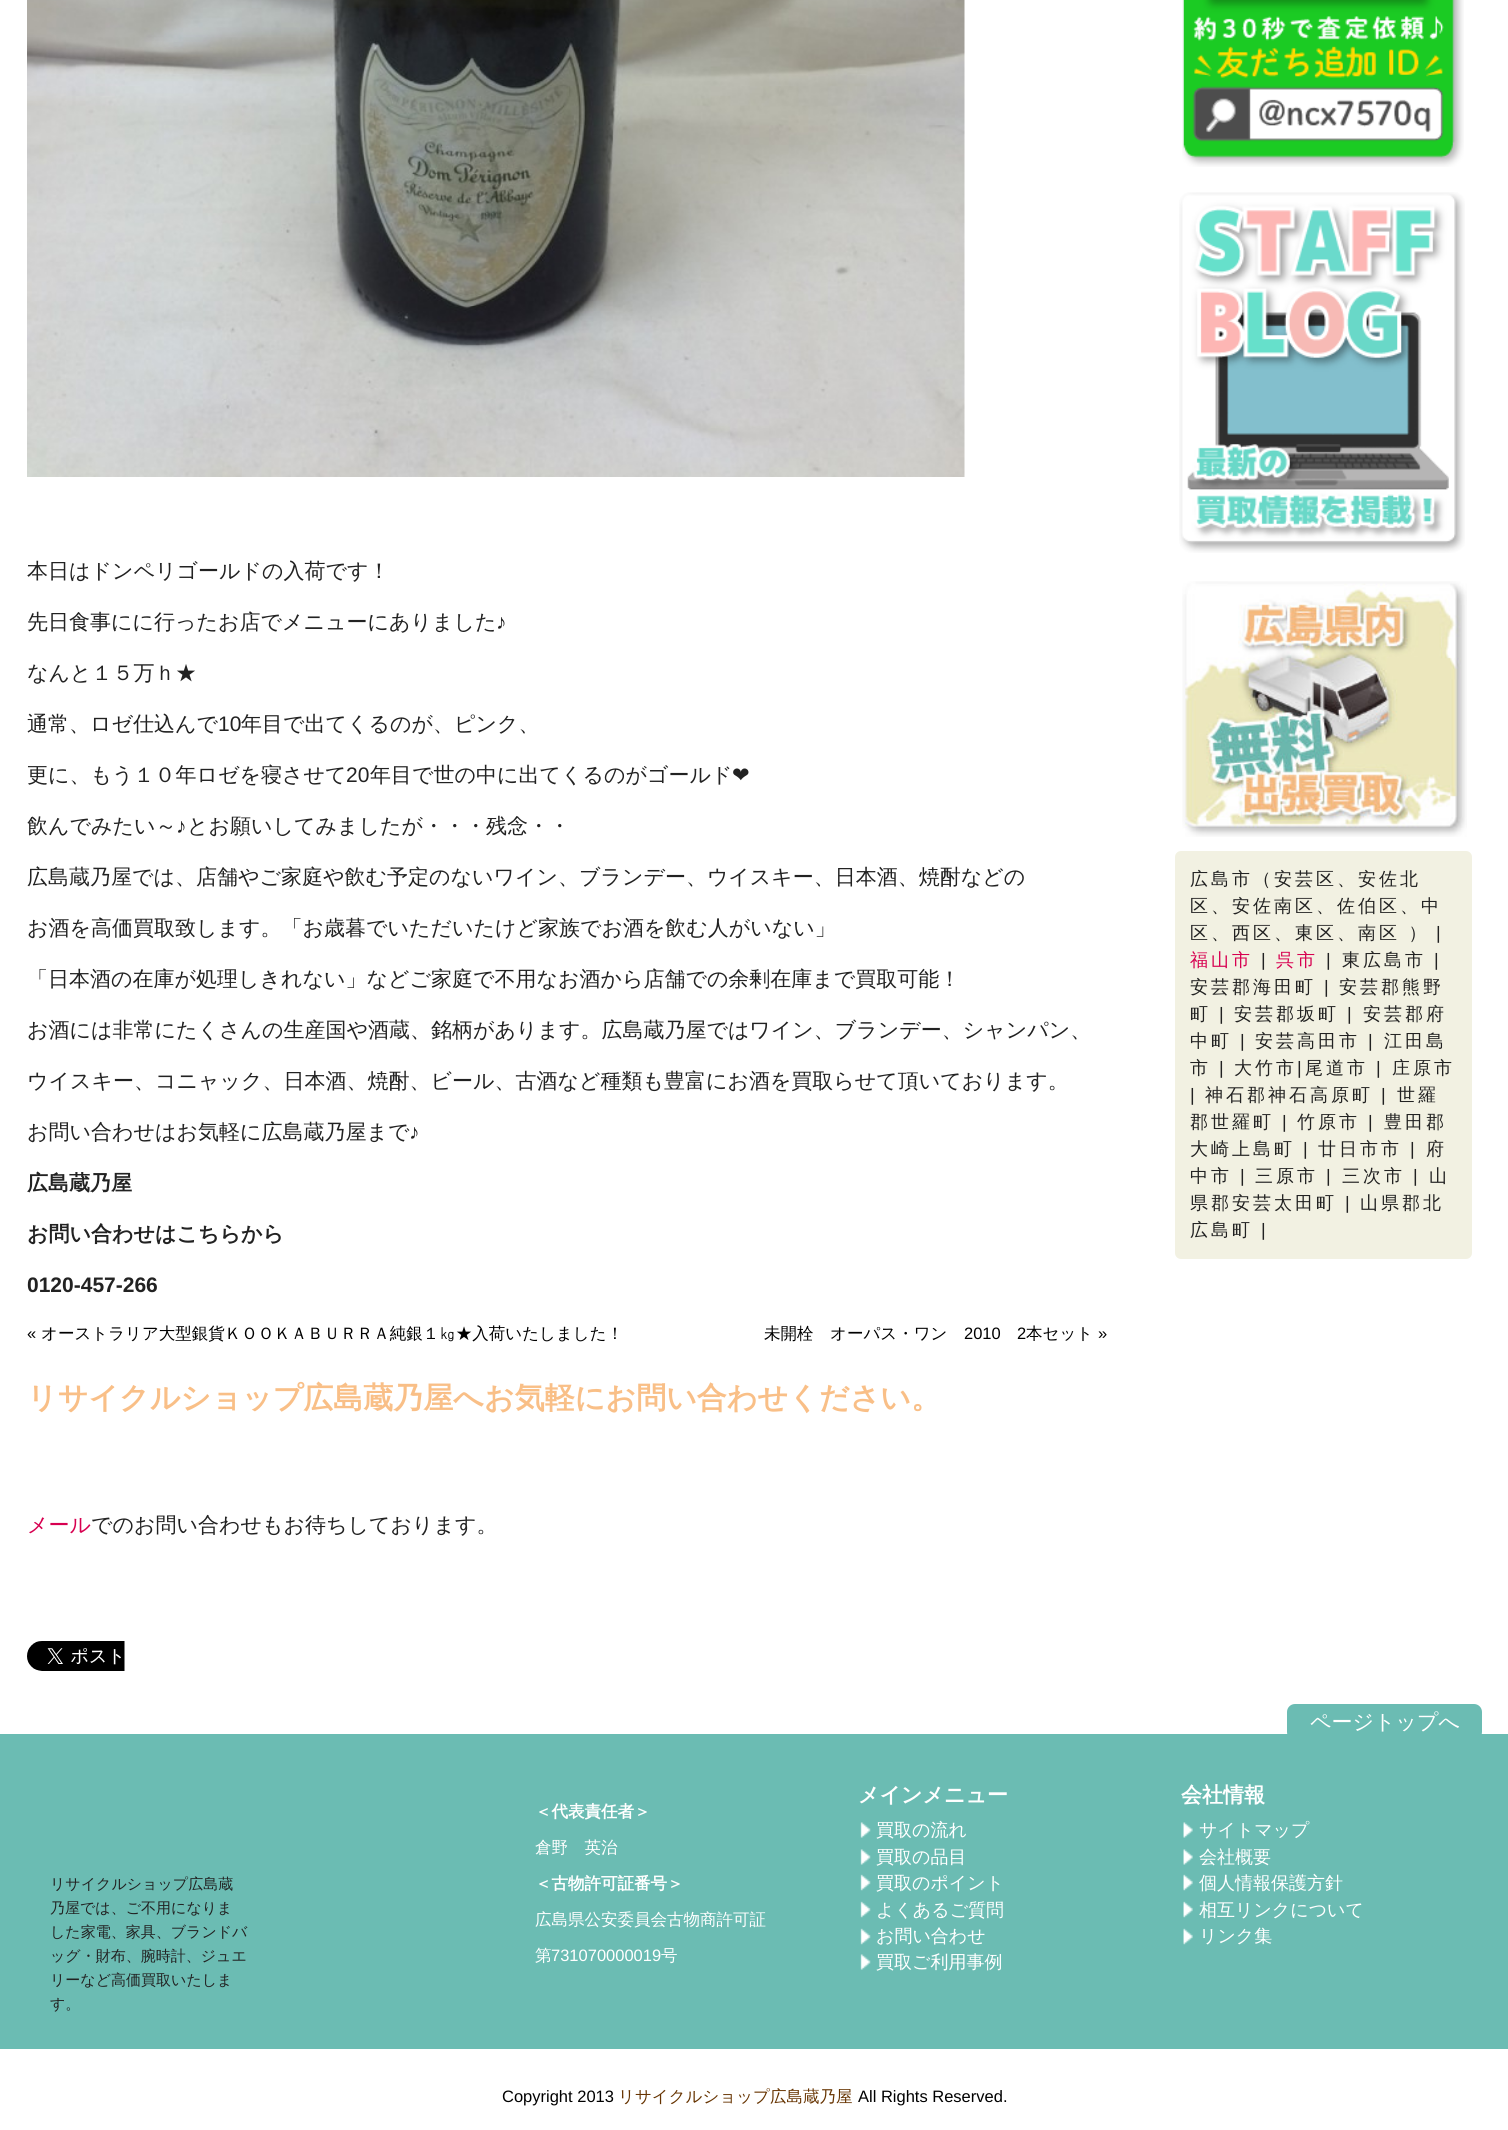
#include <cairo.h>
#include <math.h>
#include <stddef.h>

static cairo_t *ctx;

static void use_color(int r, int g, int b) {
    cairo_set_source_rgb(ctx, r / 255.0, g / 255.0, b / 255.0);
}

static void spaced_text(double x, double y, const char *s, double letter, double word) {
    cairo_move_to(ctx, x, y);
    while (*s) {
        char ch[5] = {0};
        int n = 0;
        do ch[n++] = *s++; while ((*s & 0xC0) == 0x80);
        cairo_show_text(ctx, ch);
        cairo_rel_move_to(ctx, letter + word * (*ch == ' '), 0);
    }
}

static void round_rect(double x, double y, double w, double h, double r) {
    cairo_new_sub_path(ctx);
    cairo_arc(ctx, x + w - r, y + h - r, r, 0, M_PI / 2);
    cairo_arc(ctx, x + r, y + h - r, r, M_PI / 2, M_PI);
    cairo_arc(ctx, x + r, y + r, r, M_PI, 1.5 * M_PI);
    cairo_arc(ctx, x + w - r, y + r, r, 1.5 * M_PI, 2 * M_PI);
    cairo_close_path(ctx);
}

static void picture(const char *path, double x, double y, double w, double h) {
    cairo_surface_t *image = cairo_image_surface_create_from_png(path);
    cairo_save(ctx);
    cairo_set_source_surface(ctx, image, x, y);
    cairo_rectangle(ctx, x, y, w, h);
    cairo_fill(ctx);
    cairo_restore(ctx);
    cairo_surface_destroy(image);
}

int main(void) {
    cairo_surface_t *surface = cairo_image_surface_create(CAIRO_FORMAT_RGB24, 1508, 2130);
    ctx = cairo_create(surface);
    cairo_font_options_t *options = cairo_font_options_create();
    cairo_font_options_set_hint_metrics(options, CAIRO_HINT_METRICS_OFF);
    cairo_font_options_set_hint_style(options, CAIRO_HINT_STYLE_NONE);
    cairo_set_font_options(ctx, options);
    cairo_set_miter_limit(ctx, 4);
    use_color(255, 255, 255);
    cairo_paint(ctx);
    picture("img1.png", 27, 0, 938, 477);
    cairo_select_font_face(ctx, "WenQuanYi Zen Hei Medium", CAIRO_FONT_SLANT_NORMAL, CAIRO_FONT_WEIGHT_NORMAL);
    cairo_set_font_size(ctx, 21);
    use_color(34, 34, 34);
    cairo_move_to(ctx, 27, 578);
    cairo_show_text(ctx, "本日はドンペリゴールドの入荷です！");
    cairo_move_to(ctx, 27, 629);
    cairo_show_text(ctx, "先日食事にに行ったお店でメニューにありました");
    cairo_select_font_face(ctx, "Liberation Sans", CAIRO_FONT_SLANT_NORMAL, CAIRO_FONT_WEIGHT_NORMAL);
    cairo_move_to(ctx, 496, 629);
    cairo_show_text(ctx, "♪");
    cairo_select_font_face(ctx, "WenQuanYi Zen Hei Medium", CAIRO_FONT_SLANT_NORMAL, CAIRO_FONT_WEIGHT_NORMAL);
    cairo_move_to(ctx, 27, 680);
    cairo_show_text(ctx, "なんと１５万ｈ★");
    cairo_move_to(ctx, 27, 731);
    cairo_show_text(ctx, "通常、ロゼ仕込んで");
    cairo_select_font_face(ctx, "Liberation Sans", CAIRO_FONT_SLANT_NORMAL, CAIRO_FONT_WEIGHT_NORMAL);
    cairo_move_to(ctx, 218, 731);
    cairo_show_text(ctx, "10");
    cairo_select_font_face(ctx, "WenQuanYi Zen Hei Medium", CAIRO_FONT_SLANT_NORMAL, CAIRO_FONT_WEIGHT_NORMAL);
    cairo_move_to(ctx, 241, 731);
    cairo_show_text(ctx, "年目で出てくるのが、ピンク、");
    cairo_move_to(ctx, 27, 782);
    cairo_show_text(ctx, "更に、もう１０年ロゼを寝させて");
    cairo_select_font_face(ctx, "Liberation Sans", CAIRO_FONT_SLANT_NORMAL, CAIRO_FONT_WEIGHT_NORMAL);
    cairo_move_to(ctx, 346, 782);
    cairo_show_text(ctx, "20");
    cairo_select_font_face(ctx, "WenQuanYi Zen Hei Medium", CAIRO_FONT_SLANT_NORMAL, CAIRO_FONT_WEIGHT_NORMAL);
    cairo_move_to(ctx, 370, 782);
    cairo_show_text(ctx, "年目で世の中に出てくるのがゴールド");
    cairo_select_font_face(ctx, "DejaVu Sans", CAIRO_FONT_SLANT_NORMAL, CAIRO_FONT_WEIGHT_NORMAL);
    cairo_move_to(ctx, 732, 782);
    cairo_show_text(ctx, "❤");
    cairo_select_font_face(ctx, "WenQuanYi Zen Hei Medium", CAIRO_FONT_SLANT_NORMAL, CAIRO_FONT_WEIGHT_NORMAL);
    cairo_move_to(ctx, 27, 833);
    cairo_show_text(ctx, "飲んでみたい～");
    cairo_select_font_face(ctx, "Liberation Sans", CAIRO_FONT_SLANT_NORMAL, CAIRO_FONT_WEIGHT_NORMAL);
    cairo_move_to(ctx, 176, 833);
    cairo_show_text(ctx, "♪");
    cairo_select_font_face(ctx, "WenQuanYi Zen Hei Medium", CAIRO_FONT_SLANT_NORMAL, CAIRO_FONT_WEIGHT_NORMAL);
    cairo_move_to(ctx, 187, 833);
    cairo_show_text(ctx, "とお願いしてみましたが・・・残念・・");
    cairo_move_to(ctx, 27, 884);
    cairo_show_text(ctx, "広島蔵乃屋では、店舗やご家庭や飲む予定のないワイン、ブランデー、ウイスキー、日本酒、焼酎などの");
    cairo_move_to(ctx, 27, 935);
    cairo_show_text(ctx, "お酒を高価買取致します。「お歳暮でいただいたけど家族でお酒を飲む人がいない」");
    cairo_move_to(ctx, 27, 986);
    cairo_show_text(ctx, "「日本酒の在庫が処理しきれない」などご家庭で不用なお酒から店舗での余剰在庫まで買取可能！");
    cairo_move_to(ctx, 27, 1037);
    cairo_show_text(ctx, "お酒には非常にたくさんの生産国や酒蔵、銘柄があります。広島蔵乃屋ではワイン、ブランデー、シャンパン、");
    cairo_move_to(ctx, 27, 1088);
    cairo_show_text(ctx, "ウイスキー、コニャック、日本酒、焼酎、ビール、古酒など種類も豊富にお酒を買取らせて頂いております。");
    cairo_move_to(ctx, 27, 1139);
    cairo_show_text(ctx, "お問い合わせはお気軽に広島蔵乃屋まで");
    cairo_select_font_face(ctx, "Liberation Sans", CAIRO_FONT_SLANT_NORMAL, CAIRO_FONT_WEIGHT_NORMAL);
    cairo_move_to(ctx, 409, 1139);
    cairo_show_text(ctx, "♪");
    cairo_select_font_face(ctx, "WenQuanYi Zen Hei", CAIRO_FONT_SLANT_NORMAL, CAIRO_FONT_WEIGHT_BOLD);
    cairo_move_to(ctx, 27, 1190);
    cairo_show_text(ctx, "広島蔵乃屋");
    cairo_move_to(ctx, 27, 1241);
    cairo_show_text(ctx, "お問い合わせはこちらから");
    cairo_select_font_face(ctx, "Liberation Sans", CAIRO_FONT_SLANT_NORMAL, CAIRO_FONT_WEIGHT_BOLD);
    cairo_move_to(ctx, 27, 1292);
    cairo_show_text(ctx, "0120-457-266");
    cairo_select_font_face(ctx, "Liberation Sans", CAIRO_FONT_SLANT_NORMAL, CAIRO_FONT_WEIGHT_NORMAL);
    cairo_set_font_size(ctx, 16.5);
    use_color(0, 0, 0);
    cairo_move_to(ctx, 27, 1339);
    cairo_show_text(ctx, "«");
    cairo_select_font_face(ctx, "WenQuanYi Zen Hei Medium", CAIRO_FONT_SLANT_NORMAL, CAIRO_FONT_WEIGHT_NORMAL);
    cairo_move_to(ctx, 41, 1339);
    cairo_show_text(ctx, "オーストラリア大型銀貨ＫＯＯＫＡＢＵＲＲＡ純銀１㎏★入荷いたしました！");
    cairo_move_to(ctx, 764, 1339);
    cairo_show_text(ctx, "未開栓　オーパス・ワン");
    cairo_select_font_face(ctx, "Liberation Sans", CAIRO_FONT_SLANT_NORMAL, CAIRO_FONT_WEIGHT_NORMAL);
    cairo_move_to(ctx, 964, 1339);
    cairo_show_text(ctx, "2010");
    cairo_move_to(ctx, 1017, 1339);
    cairo_show_text(ctx, "2");
    cairo_select_font_face(ctx, "WenQuanYi Zen Hei Medium", CAIRO_FONT_SLANT_NORMAL, CAIRO_FONT_WEIGHT_NORMAL);
    cairo_move_to(ctx, 1026, 1339);
    cairo_show_text(ctx, "本セット");
    cairo_select_font_face(ctx, "Liberation Sans", CAIRO_FONT_SLANT_NORMAL, CAIRO_FONT_WEIGHT_NORMAL);
    cairo_move_to(ctx, 1098, 1339);
    cairo_show_text(ctx, "»");
    cairo_select_font_face(ctx, "WenQuanYi Zen Hei", CAIRO_FONT_SLANT_NORMAL, CAIRO_FONT_WEIGHT_BOLD);
    cairo_set_font_size(ctx, 30);
    use_color(249, 191, 135);
    cairo_move_to(ctx, 27, 1408);
    cairo_show_text(ctx, "リサイクルショップ広島蔵乃屋へお気軽にお問い合わせください。");
    cairo_select_font_face(ctx, "WenQuanYi Zen Hei Medium", CAIRO_FONT_SLANT_NORMAL, CAIRO_FONT_WEIGHT_NORMAL);
    cairo_set_font_size(ctx, 21);
    use_color(215, 0, 80);
    cairo_move_to(ctx, 27, 1532);
    cairo_show_text(ctx, "メール");
    use_color(34, 34, 34);
    cairo_move_to(ctx, 91, 1532);
    cairo_show_text(ctx, "でのお問い合わせもお待ちしております。");
    picture("img2.png", 27, 1641, 98, 30);
    picture("img3.png", 1182, 0, 282, 167);
    picture("img4.png", 1179, 192, 286, 361);
    picture("img5.png", 1182, 581, 285, 256);
    use_color(242, 241, 226);
    round_rect(1175, 851, 297, 408, 6);
    cairo_fill(ctx);
    cairo_set_font_size(ctx, 18);
    use_color(34, 34, 34);
    spaced_text(1190, 885, "広島市（安芸区、安佐北", 3, 0);
    spaced_text(1190, 912, "区、安佐南区、佐伯区、中", 3, 0);
    spaced_text(1190, 939, "区、西区、東区、南区 ）", 3, 0);
    cairo_select_font_face(ctx, "Liberation Sans", CAIRO_FONT_SLANT_NORMAL, CAIRO_FONT_WEIGHT_NORMAL);
    spaced_text(1436, 939, "|", 3, 0);
    cairo_select_font_face(ctx, "WenQuanYi Zen Hei Medium", CAIRO_FONT_SLANT_NORMAL, CAIRO_FONT_WEIGHT_NORMAL);
    use_color(215, 0, 80);
    spaced_text(1190, 966, "福山市", 3, 0);
    cairo_select_font_face(ctx, "Liberation Sans", CAIRO_FONT_SLANT_NORMAL, CAIRO_FONT_WEIGHT_NORMAL);
    use_color(34, 34, 34);
    spaced_text(1261, 966, "|", 3, 0);
    cairo_select_font_face(ctx, "WenQuanYi Zen Hei Medium", CAIRO_FONT_SLANT_NORMAL, CAIRO_FONT_WEIGHT_NORMAL);
    use_color(215, 0, 80);
    spaced_text(1276, 966, "呉市", 3, 0);
    cairo_select_font_face(ctx, "Liberation Sans", CAIRO_FONT_SLANT_NORMAL, CAIRO_FONT_WEIGHT_NORMAL);
    use_color(34, 34, 34);
    spaced_text(1326, 966, "|", 3, 0);
    cairo_select_font_face(ctx, "WenQuanYi Zen Hei Medium", CAIRO_FONT_SLANT_NORMAL, CAIRO_FONT_WEIGHT_NORMAL);
    spaced_text(1342, 966, "東広島市", 3, 0);
    cairo_select_font_face(ctx, "Liberation Sans", CAIRO_FONT_SLANT_NORMAL, CAIRO_FONT_WEIGHT_NORMAL);
    spaced_text(1434, 966, "|", 3, 0);
    cairo_select_font_face(ctx, "WenQuanYi Zen Hei Medium", CAIRO_FONT_SLANT_NORMAL, CAIRO_FONT_WEIGHT_NORMAL);
    spaced_text(1190, 993, "安芸郡海田町", 3, 0);
    cairo_select_font_face(ctx, "Liberation Sans", CAIRO_FONT_SLANT_NORMAL, CAIRO_FONT_WEIGHT_NORMAL);
    spaced_text(1324, 993, "|", 3, 0);
    cairo_select_font_face(ctx, "WenQuanYi Zen Hei Medium", CAIRO_FONT_SLANT_NORMAL, CAIRO_FONT_WEIGHT_NORMAL);
    spaced_text(1339, 993, "安芸郡熊野", 3, 0);
    spaced_text(1190, 1020, "町", 3, 0);
    cairo_select_font_face(ctx, "Liberation Sans", CAIRO_FONT_SLANT_NORMAL, CAIRO_FONT_WEIGHT_NORMAL);
    spaced_text(1219, 1020, "|", 3, 0);
    cairo_select_font_face(ctx, "WenQuanYi Zen Hei Medium", CAIRO_FONT_SLANT_NORMAL, CAIRO_FONT_WEIGHT_NORMAL);
    spaced_text(1234, 1020, "安芸郡坂町", 3, 0);
    cairo_select_font_face(ctx, "Liberation Sans", CAIRO_FONT_SLANT_NORMAL, CAIRO_FONT_WEIGHT_NORMAL);
    spaced_text(1347, 1020, "|", 3, 0);
    cairo_select_font_face(ctx, "WenQuanYi Zen Hei Medium", CAIRO_FONT_SLANT_NORMAL, CAIRO_FONT_WEIGHT_NORMAL);
    spaced_text(1363, 1020, "安芸郡府", 3, 0);
    spaced_text(1190, 1047, "中町", 3, 0);
    cairo_select_font_face(ctx, "Liberation Sans", CAIRO_FONT_SLANT_NORMAL, CAIRO_FONT_WEIGHT_NORMAL);
    spaced_text(1240, 1047, "|", 3, 0);
    cairo_select_font_face(ctx, "WenQuanYi Zen Hei Medium", CAIRO_FONT_SLANT_NORMAL, CAIRO_FONT_WEIGHT_NORMAL);
    spaced_text(1255, 1047, "安芸高田市", 3, 0);
    cairo_select_font_face(ctx, "Liberation Sans", CAIRO_FONT_SLANT_NORMAL, CAIRO_FONT_WEIGHT_NORMAL);
    spaced_text(1368, 1047, "|", 3, 0);
    cairo_select_font_face(ctx, "WenQuanYi Zen Hei Medium", CAIRO_FONT_SLANT_NORMAL, CAIRO_FONT_WEIGHT_NORMAL);
    spaced_text(1384, 1047, "江田島", 3, 0);
    spaced_text(1190, 1074, "市", 3, 0);
    cairo_select_font_face(ctx, "Liberation Sans", CAIRO_FONT_SLANT_NORMAL, CAIRO_FONT_WEIGHT_NORMAL);
    spaced_text(1219, 1074, "|", 3, 0);
    cairo_select_font_face(ctx, "WenQuanYi Zen Hei Medium", CAIRO_FONT_SLANT_NORMAL, CAIRO_FONT_WEIGHT_NORMAL);
    spaced_text(1234, 1074, "大竹市", 3, 0);
    cairo_select_font_face(ctx, "Liberation Sans", CAIRO_FONT_SLANT_NORMAL, CAIRO_FONT_WEIGHT_NORMAL);
    spaced_text(1297, 1074, "|", 3, 0);
    cairo_select_font_face(ctx, "WenQuanYi Zen Hei Medium", CAIRO_FONT_SLANT_NORMAL, CAIRO_FONT_WEIGHT_NORMAL);
    spaced_text(1305, 1074, "尾道市", 3, 0);
    cairo_select_font_face(ctx, "Liberation Sans", CAIRO_FONT_SLANT_NORMAL, CAIRO_FONT_WEIGHT_NORMAL);
    spaced_text(1376, 1074, "|", 3, 0);
    cairo_select_font_face(ctx, "WenQuanYi Zen Hei Medium", CAIRO_FONT_SLANT_NORMAL, CAIRO_FONT_WEIGHT_NORMAL);
    spaced_text(1392, 1074, "庄原市", 3, 0);
    cairo_select_font_face(ctx, "Liberation Sans", CAIRO_FONT_SLANT_NORMAL, CAIRO_FONT_WEIGHT_NORMAL);
    spaced_text(1190, 1101, "|", 3, 0);
    cairo_select_font_face(ctx, "WenQuanYi Zen Hei Medium", CAIRO_FONT_SLANT_NORMAL, CAIRO_FONT_WEIGHT_NORMAL);
    spaced_text(1205, 1101, "神石郡神石高原町", 3, 0);
    cairo_select_font_face(ctx, "Liberation Sans", CAIRO_FONT_SLANT_NORMAL, CAIRO_FONT_WEIGHT_NORMAL);
    spaced_text(1381, 1101, "|", 3, 0);
    cairo_select_font_face(ctx, "WenQuanYi Zen Hei Medium", CAIRO_FONT_SLANT_NORMAL, CAIRO_FONT_WEIGHT_NORMAL);
    spaced_text(1397, 1101, "世羅", 3, 0);
    spaced_text(1190, 1128, "郡世羅町", 3, 0);
    cairo_select_font_face(ctx, "Liberation Sans", CAIRO_FONT_SLANT_NORMAL, CAIRO_FONT_WEIGHT_NORMAL);
    spaced_text(1282, 1128, "|", 3, 0);
    cairo_select_font_face(ctx, "WenQuanYi Zen Hei Medium", CAIRO_FONT_SLANT_NORMAL, CAIRO_FONT_WEIGHT_NORMAL);
    spaced_text(1297, 1128, "竹原市", 3, 0);
    cairo_select_font_face(ctx, "Liberation Sans", CAIRO_FONT_SLANT_NORMAL, CAIRO_FONT_WEIGHT_NORMAL);
    spaced_text(1368, 1128, "|", 3, 0);
    cairo_select_font_face(ctx, "WenQuanYi Zen Hei Medium", CAIRO_FONT_SLANT_NORMAL, CAIRO_FONT_WEIGHT_NORMAL);
    spaced_text(1384, 1128, "豊田郡", 3, 0);
    spaced_text(1190, 1155, "大崎上島町", 3, 0);
    cairo_select_font_face(ctx, "Liberation Sans", CAIRO_FONT_SLANT_NORMAL, CAIRO_FONT_WEIGHT_NORMAL);
    spaced_text(1303, 1155, "|", 3, 0);
    cairo_select_font_face(ctx, "WenQuanYi Zen Hei Medium", CAIRO_FONT_SLANT_NORMAL, CAIRO_FONT_WEIGHT_NORMAL);
    spaced_text(1318, 1155, "廿日市市", 3, 0);
    cairo_select_font_face(ctx, "Liberation Sans", CAIRO_FONT_SLANT_NORMAL, CAIRO_FONT_WEIGHT_NORMAL);
    spaced_text(1410, 1155, "|", 3, 0);
    cairo_select_font_face(ctx, "WenQuanYi Zen Hei Medium", CAIRO_FONT_SLANT_NORMAL, CAIRO_FONT_WEIGHT_NORMAL);
    spaced_text(1426, 1155, "府", 3, 0);
    spaced_text(1190, 1182, "中市", 3, 0);
    cairo_select_font_face(ctx, "Liberation Sans", CAIRO_FONT_SLANT_NORMAL, CAIRO_FONT_WEIGHT_NORMAL);
    spaced_text(1240, 1182, "|", 3, 0);
    cairo_select_font_face(ctx, "WenQuanYi Zen Hei Medium", CAIRO_FONT_SLANT_NORMAL, CAIRO_FONT_WEIGHT_NORMAL);
    spaced_text(1255, 1182, "三原市", 3, 0);
    cairo_select_font_face(ctx, "Liberation Sans", CAIRO_FONT_SLANT_NORMAL, CAIRO_FONT_WEIGHT_NORMAL);
    spaced_text(1326, 1182, "|", 3, 0);
    cairo_select_font_face(ctx, "WenQuanYi Zen Hei Medium", CAIRO_FONT_SLANT_NORMAL, CAIRO_FONT_WEIGHT_NORMAL);
    spaced_text(1342, 1182, "三次市", 3, 0);
    cairo_select_font_face(ctx, "Liberation Sans", CAIRO_FONT_SLANT_NORMAL, CAIRO_FONT_WEIGHT_NORMAL);
    spaced_text(1413, 1182, "|", 3, 0);
    cairo_select_font_face(ctx, "WenQuanYi Zen Hei Medium", CAIRO_FONT_SLANT_NORMAL, CAIRO_FONT_WEIGHT_NORMAL);
    spaced_text(1429, 1182, "山", 3, 0);
    spaced_text(1190, 1209, "県郡安芸太田町", 3, 0);
    cairo_select_font_face(ctx, "Liberation Sans", CAIRO_FONT_SLANT_NORMAL, CAIRO_FONT_WEIGHT_NORMAL);
    spaced_text(1345, 1209, "|", 3, 0);
    cairo_select_font_face(ctx, "WenQuanYi Zen Hei Medium", CAIRO_FONT_SLANT_NORMAL, CAIRO_FONT_WEIGHT_NORMAL);
    spaced_text(1360, 1209, "山県郡北", 3, 0);
    spaced_text(1190, 1236, "広島町", 3, 0);
    cairo_select_font_face(ctx, "Liberation Sans", CAIRO_FONT_SLANT_NORMAL, CAIRO_FONT_WEIGHT_NORMAL);
    spaced_text(1261, 1236, "|", 3, 0);
    use_color(107, 188, 179);
    cairo_rectangle(ctx, 0, 1734, 1508, 315);
    cairo_fill(ctx);
    round_rect(1287, 1704, 195, 36, 8);
    cairo_fill(ctx);
    cairo_select_font_face(ctx, "WenQuanYi Zen Hei Medium", CAIRO_FONT_SLANT_NORMAL, CAIRO_FONT_WEIGHT_NORMAL);
    cairo_set_font_size(ctx, 21);
    use_color(255, 255, 255);
    cairo_move_to(ctx, 1310, 1729);
    cairo_show_text(ctx, "ページトップへ");
    cairo_set_font_size(ctx, 15);
    use_color(34, 34, 34);
    cairo_move_to(ctx, 50, 1889);
    cairo_show_text(ctx, "リサイクルショップ広島蔵");
    cairo_move_to(ctx, 50, 1913);
    cairo_show_text(ctx, "乃屋では、ご不用になりま");
    cairo_move_to(ctx, 50, 1937);
    cairo_show_text(ctx, "した家電、家具、ブランドバ");
    cairo_move_to(ctx, 50, 1961);
    cairo_show_text(ctx, "ッグ・財布、腕時計、ジュエ");
    cairo_move_to(ctx, 50, 1985);
    cairo_show_text(ctx, "リーなど高価買取いたしま");
    cairo_move_to(ctx, 50, 2009);
    cairo_show_text(ctx, "す。");
    cairo_select_font_face(ctx, "WenQuanYi Zen Hei", CAIRO_FONT_SLANT_NORMAL, CAIRO_FONT_WEIGHT_BOLD);
    cairo_set_font_size(ctx, 16.5);
    use_color(255, 255, 255);
    cairo_move_to(ctx, 535, 1817);
    cairo_show_text(ctx, "＜代表責任者＞");
    cairo_select_font_face(ctx, "WenQuanYi Zen Hei Medium", CAIRO_FONT_SLANT_NORMAL, CAIRO_FONT_WEIGHT_NORMAL);
    cairo_move_to(ctx, 535, 1853);
    cairo_show_text(ctx, "倉野　英治");
    cairo_select_font_face(ctx, "WenQuanYi Zen Hei", CAIRO_FONT_SLANT_NORMAL, CAIRO_FONT_WEIGHT_BOLD);
    cairo_move_to(ctx, 535, 1889);
    cairo_show_text(ctx, "＜古物許可証番号＞");
    cairo_select_font_face(ctx, "WenQuanYi Zen Hei Medium", CAIRO_FONT_SLANT_NORMAL, CAIRO_FONT_WEIGHT_NORMAL);
    cairo_move_to(ctx, 535, 1925);
    cairo_show_text(ctx, "広島県公安委員会古物商許可証");
    cairo_move_to(ctx, 535, 1961);
    cairo_show_text(ctx, "第");
    cairo_select_font_face(ctx, "Liberation Sans", CAIRO_FONT_SLANT_NORMAL, CAIRO_FONT_WEIGHT_NORMAL);
    cairo_move_to(ctx, 551, 1961);
    cairo_show_text(ctx, "731070000019");
    cairo_select_font_face(ctx, "WenQuanYi Zen Hei Medium", CAIRO_FONT_SLANT_NORMAL, CAIRO_FONT_WEIGHT_NORMAL);
    cairo_move_to(ctx, 661, 1961);
    cairo_show_text(ctx, "号");
    cairo_select_font_face(ctx, "WenQuanYi Zen Hei", CAIRO_FONT_SLANT_NORMAL, CAIRO_FONT_WEIGHT_BOLD);
    cairo_set_font_size(ctx, 21);
    cairo_move_to(ctx, 858, 1802);
    cairo_show_text(ctx, "メインメニュー");
    picture("img6.png", 860, 1822, 11, 16);
    cairo_select_font_face(ctx, "WenQuanYi Zen Hei Medium", CAIRO_FONT_SLANT_NORMAL, CAIRO_FONT_WEIGHT_NORMAL);
    cairo_set_font_size(ctx, 18);
    cairo_move_to(ctx, 876, 1836);
    cairo_show_text(ctx, "買取の流れ");
    picture("img6.png", 860, 1849, 11, 16);
    cairo_move_to(ctx, 876, 1863);
    cairo_show_text(ctx, "買取の品目");
    picture("img7.png", 860, 1874, 11, 17);
    cairo_move_to(ctx, 876, 1889);
    cairo_show_text(ctx, "買取のポイント");
    picture("img7.png", 860, 1901, 11, 17);
    cairo_move_to(ctx, 876, 1916);
    cairo_show_text(ctx, "よくあるご質問");
    picture("img7.png", 860, 1928, 11, 17);
    cairo_move_to(ctx, 876, 1942);
    cairo_show_text(ctx, "お問い合わせ");
    picture("img6.png", 860, 1954, 11, 16);
    cairo_move_to(ctx, 876, 1968);
    cairo_show_text(ctx, "買取ご利用事例");
    cairo_select_font_face(ctx, "WenQuanYi Zen Hei", CAIRO_FONT_SLANT_NORMAL, CAIRO_FONT_WEIGHT_BOLD);
    cairo_set_font_size(ctx, 21);
    cairo_move_to(ctx, 1181, 1802);
    cairo_show_text(ctx, "会社情報");
    picture("img8.png", 1183, 1822, 10, 16);
    cairo_select_font_face(ctx, "WenQuanYi Zen Hei Medium", CAIRO_FONT_SLANT_NORMAL, CAIRO_FONT_WEIGHT_NORMAL);
    cairo_set_font_size(ctx, 18);
    cairo_move_to(ctx, 1199, 1836);
    cairo_show_text(ctx, "サイトマップ");
    picture("img8.png", 1183, 1849, 10, 16);
    cairo_move_to(ctx, 1199, 1863);
    cairo_show_text(ctx, "会社概要");
    picture("img9.png", 1183, 1874, 10, 17);
    cairo_move_to(ctx, 1199, 1889);
    cairo_show_text(ctx, "個人情報保護方針");
    picture("img9.png", 1183, 1901, 10, 17);
    cairo_move_to(ctx, 1199, 1916);
    cairo_show_text(ctx, "相互リンクについて");
    picture("img9.png", 1183, 1928, 10, 17);
    cairo_move_to(ctx, 1199, 1942);
    cairo_show_text(ctx, "リンク集");
    cairo_select_font_face(ctx, "Liberation Sans", CAIRO_FONT_SLANT_NORMAL, CAIRO_FONT_WEIGHT_NORMAL);
    cairo_set_font_size(ctx, 16.5);
    use_color(0, 0, 0);
    cairo_move_to(ctx, 502, 2102);
    cairo_show_text(ctx, "Copyright 2013");
    cairo_select_font_face(ctx, "WenQuanYi Zen Hei Medium", CAIRO_FONT_SLANT_NORMAL, CAIRO_FONT_WEIGHT_NORMAL);
    use_color(102, 51, 0);
    cairo_move_to(ctx, 618, 2102);
    cairo_show_text(ctx, "リサイクルショップ広島蔵乃屋");
    cairo_select_font_face(ctx, "Liberation Sans", CAIRO_FONT_SLANT_NORMAL, CAIRO_FONT_WEIGHT_NORMAL);
    use_color(0, 0, 0);
    cairo_move_to(ctx, 858, 2102);
    cairo_show_text(ctx, "All Rights Reserved.");
    cairo_surface_write_to_png(surface, "result.png");
    cairo_font_options_destroy(options);
    cairo_destroy(ctx);
    cairo_surface_destroy(surface);
    return 0;
}
